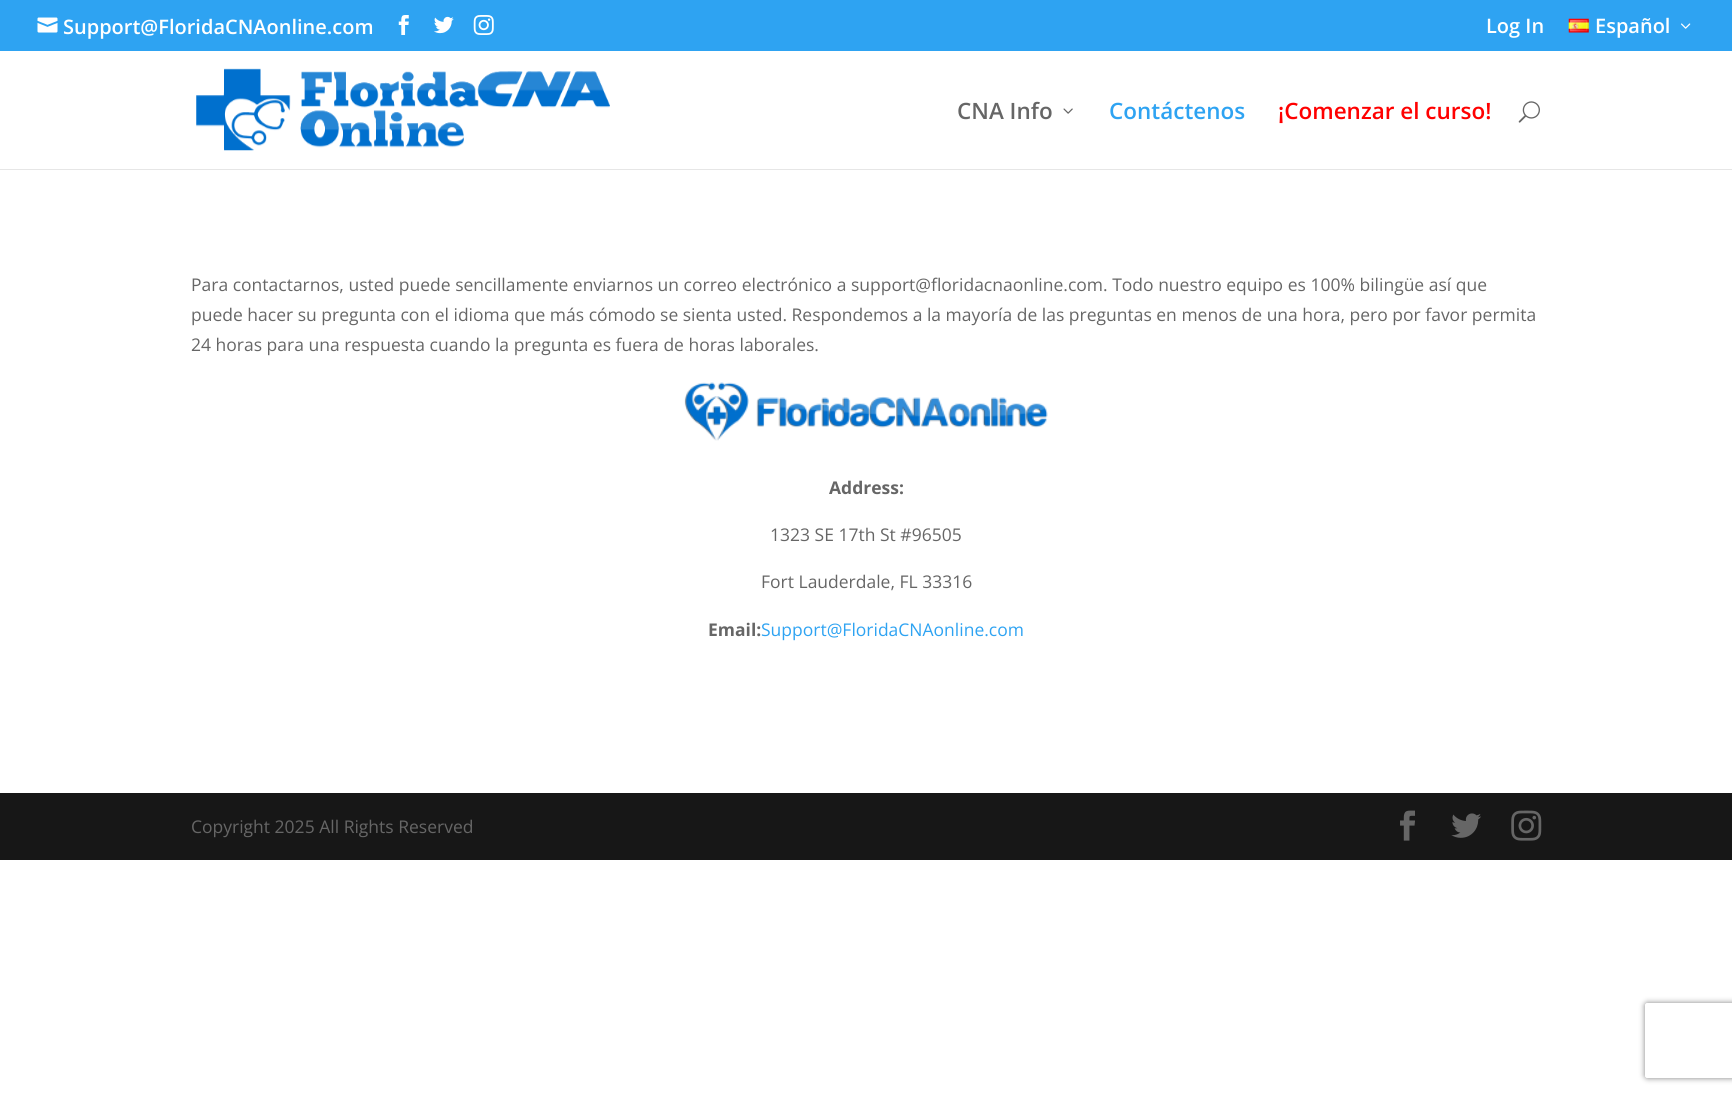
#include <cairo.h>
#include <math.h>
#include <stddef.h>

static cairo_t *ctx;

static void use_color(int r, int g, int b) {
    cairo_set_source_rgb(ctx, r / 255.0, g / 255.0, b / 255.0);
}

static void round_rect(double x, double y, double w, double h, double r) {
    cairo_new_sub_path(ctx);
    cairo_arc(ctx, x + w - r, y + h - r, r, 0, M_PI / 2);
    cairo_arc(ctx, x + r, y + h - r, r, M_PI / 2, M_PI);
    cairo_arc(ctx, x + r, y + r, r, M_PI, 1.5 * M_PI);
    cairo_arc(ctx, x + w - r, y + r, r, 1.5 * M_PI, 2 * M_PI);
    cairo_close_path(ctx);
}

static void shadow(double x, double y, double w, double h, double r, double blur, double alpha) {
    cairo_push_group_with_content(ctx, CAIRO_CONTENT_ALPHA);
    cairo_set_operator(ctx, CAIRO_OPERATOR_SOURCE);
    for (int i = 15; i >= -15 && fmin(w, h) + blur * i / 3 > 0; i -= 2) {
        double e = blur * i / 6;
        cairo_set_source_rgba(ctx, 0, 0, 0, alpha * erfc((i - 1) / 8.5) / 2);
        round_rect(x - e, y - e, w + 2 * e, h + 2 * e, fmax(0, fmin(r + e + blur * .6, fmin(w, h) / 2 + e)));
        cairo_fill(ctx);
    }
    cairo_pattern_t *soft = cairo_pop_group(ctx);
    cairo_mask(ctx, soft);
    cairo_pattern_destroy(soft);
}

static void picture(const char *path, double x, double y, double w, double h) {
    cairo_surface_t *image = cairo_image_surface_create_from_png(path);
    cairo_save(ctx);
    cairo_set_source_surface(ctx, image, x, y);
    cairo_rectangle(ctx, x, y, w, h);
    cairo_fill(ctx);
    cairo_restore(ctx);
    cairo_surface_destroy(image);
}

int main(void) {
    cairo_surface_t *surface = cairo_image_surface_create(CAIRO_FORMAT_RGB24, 1732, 1094);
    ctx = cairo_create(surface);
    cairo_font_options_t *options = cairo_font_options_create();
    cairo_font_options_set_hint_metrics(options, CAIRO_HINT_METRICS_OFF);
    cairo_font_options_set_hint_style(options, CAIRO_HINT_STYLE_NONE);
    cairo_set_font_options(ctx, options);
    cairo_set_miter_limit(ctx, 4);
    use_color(255, 255, 255);
    cairo_paint(ctx);
    use_color(46, 163, 242);
    cairo_rectangle(ctx, 0, 0, 1732, 51);
    cairo_fill(ctx);
    picture("img1.png", 37, 17, 21, 16);
    cairo_select_font_face(ctx, "Open Sans SemiBold", CAIRO_FONT_SLANT_NORMAL, CAIRO_FONT_WEIGHT_NORMAL);
    cairo_set_font_size(ctx, 20);
    use_color(255, 255, 255);
    cairo_move_to(ctx, 63, 34);
    cairo_show_text(ctx, "Support@FloridaCNAonline.com");
    picture("img2.png", 398, 15, 11, 20);
    picture("img3.png", 434, 16, 20, 18);
    picture("img4.png", 473, 15, 21, 20);
    cairo_move_to(ctx, 1486, 33);
    cairo_show_text(ctx, "Log In");
    picture("img5.png", 1568, 18, 21, 15);
    cairo_move_to(ctx, 1595, 33);
    cairo_show_text(ctx, "Español");
    picture("img6.png", 1681, 23, 10, 6);
    use_color(230, 230, 230);
    cairo_new_path(ctx);
    cairo_move_to(ctx, 0, 169);
    cairo_line_to(ctx, 0, 170);
    cairo_line_to(ctx, 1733, 170);
    cairo_line_to(ctx, 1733, 53);
    cairo_line_to(ctx, 1732, 53);
    cairo_line_to(ctx, 1732, 169);
    cairo_close_path(ctx);
    cairo_fill(ctx);
    picture("img7.png", 196, 68, 414, 83);
    cairo_set_font_size(ctx, 22.5);
    use_color(102, 102, 102);
    cairo_move_to(ctx, 957, 119);
    cairo_show_text(ctx, "CNA Info");
    picture("img8.png", 1063, 108, 10, 6);
    use_color(46, 163, 242);
    cairo_move_to(ctx, 1109, 119);
    cairo_show_text(ctx, "Contáctenos");
    use_color(255, 0, 0);
    cairo_move_to(ctx, 1278, 119);
    cairo_show_text(ctx, "¡Comenzar el curso!");
    picture("img9.png", 1518, 101, 22, 22);
    cairo_select_font_face(ctx, "Open Sans", CAIRO_FONT_SLANT_NORMAL, CAIRO_FONT_WEIGHT_NORMAL);
    cairo_set_font_size(ctx, 17.5);
    use_color(102, 102, 102);
    cairo_move_to(ctx, 191, 291);
    cairo_show_text(ctx, "Para contactarnos, usted puede sencillamente enviarnos un correo electrónico a support@floridacnaonline.com. Todo nuestro equipo es 100% bilingüe así que");
    cairo_move_to(ctx, 191, 321);
    cairo_show_text(ctx, "puede hacer su pregunta con el idioma que más cómodo se sienta usted. Respondemos a la mayoría de las preguntas en menos de una hora, pero por favor permita");
    cairo_move_to(ctx, 191, 351);
    cairo_show_text(ctx, "24 horas para una respuesta cuando la pregunta es fuera de horas laborales.");
    picture("img10.png", 684, 382, 364, 59);
    cairo_select_font_face(ctx, "Open Sans", CAIRO_FONT_SLANT_NORMAL, CAIRO_FONT_WEIGHT_BOLD);
    cairo_move_to(ctx, 829, 494);
    cairo_show_text(ctx, "Address:");
    cairo_select_font_face(ctx, "Open Sans", CAIRO_FONT_SLANT_NORMAL, CAIRO_FONT_WEIGHT_NORMAL);
    cairo_move_to(ctx, 770, 541);
    cairo_show_text(ctx, "1323 SE 17th St #96505");
    cairo_move_to(ctx, 761, 588);
    cairo_show_text(ctx, "Fort Lauderdale, FL 33316");
    cairo_select_font_face(ctx, "Open Sans", CAIRO_FONT_SLANT_NORMAL, CAIRO_FONT_WEIGHT_BOLD);
    cairo_move_to(ctx, 708, 636);
    cairo_show_text(ctx, "Email:");
    cairo_select_font_face(ctx, "Open Sans", CAIRO_FONT_SLANT_NORMAL, CAIRO_FONT_WEIGHT_NORMAL);
    use_color(46, 163, 242);
    cairo_move_to(ctx, 761, 636);
    cairo_show_text(ctx, "Support@FloridaCNAonline.com");
    use_color(23, 23, 23);
    cairo_rectangle(ctx, 0, 793, 1732, 67);
    cairo_fill(ctx);
    use_color(102, 102, 102);
    cairo_move_to(ctx, 191, 833);
    cairo_show_text(ctx, "Copyright 2025 All Rights Reserved");
    picture("img11.png", 1400, 810, 15, 31);
    picture("img12.png", 1451, 813, 30, 25);
    picture("img13.png", 1511, 810, 31, 31);
    cairo_save(ctx);
    cairo_set_fill_rule(ctx, CAIRO_FILL_RULE_EVEN_ODD);
    cairo_new_path(ctx);
    cairo_move_to(ctx, 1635, 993);
    cairo_line_to(ctx, 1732, 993);
    cairo_line_to(ctx, 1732, 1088);
    cairo_line_to(ctx, 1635, 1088);
    cairo_close_path(ctx);
    cairo_move_to(ctx, 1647.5, 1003);
    cairo_line_to(ctx, 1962.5, 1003);
    cairo_curve_to(ctx, 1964, 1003, 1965, 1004, 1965, 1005.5);
    cairo_line_to(ctx, 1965, 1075.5);
    cairo_curve_to(ctx, 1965, 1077, 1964, 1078, 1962.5, 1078);
    cairo_line_to(ctx, 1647.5, 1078);
    cairo_curve_to(ctx, 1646, 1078, 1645, 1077, 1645, 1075.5);
    cairo_line_to(ctx, 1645, 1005.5);
    cairo_curve_to(ctx, 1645, 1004, 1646, 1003, 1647.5, 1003);
    cairo_close_path(ctx);
    cairo_clip(ctx);
    use_color(128, 128, 128);
    shadow(1645, 1003, 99, 75, 2.5, 3, 1);
    cairo_restore(ctx);
    cairo_surface_write_to_png(surface, "result.png");
    cairo_font_options_destroy(options);
    cairo_destroy(ctx);
    cairo_surface_destroy(surface);
    return 0;
}
